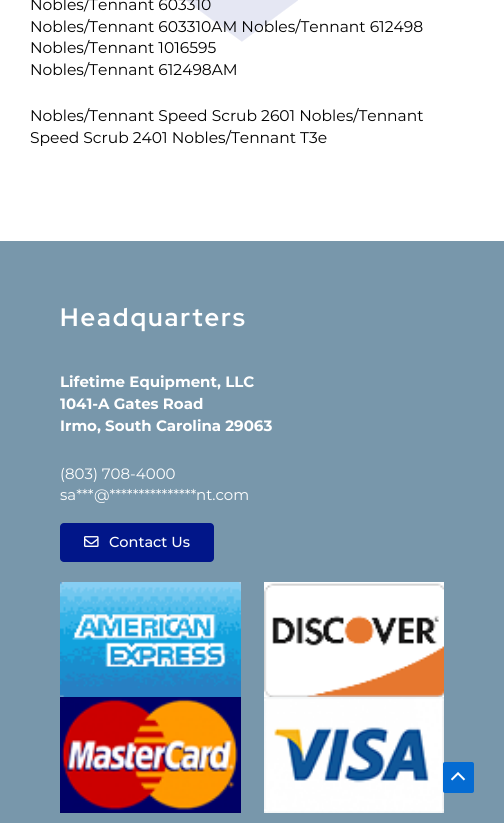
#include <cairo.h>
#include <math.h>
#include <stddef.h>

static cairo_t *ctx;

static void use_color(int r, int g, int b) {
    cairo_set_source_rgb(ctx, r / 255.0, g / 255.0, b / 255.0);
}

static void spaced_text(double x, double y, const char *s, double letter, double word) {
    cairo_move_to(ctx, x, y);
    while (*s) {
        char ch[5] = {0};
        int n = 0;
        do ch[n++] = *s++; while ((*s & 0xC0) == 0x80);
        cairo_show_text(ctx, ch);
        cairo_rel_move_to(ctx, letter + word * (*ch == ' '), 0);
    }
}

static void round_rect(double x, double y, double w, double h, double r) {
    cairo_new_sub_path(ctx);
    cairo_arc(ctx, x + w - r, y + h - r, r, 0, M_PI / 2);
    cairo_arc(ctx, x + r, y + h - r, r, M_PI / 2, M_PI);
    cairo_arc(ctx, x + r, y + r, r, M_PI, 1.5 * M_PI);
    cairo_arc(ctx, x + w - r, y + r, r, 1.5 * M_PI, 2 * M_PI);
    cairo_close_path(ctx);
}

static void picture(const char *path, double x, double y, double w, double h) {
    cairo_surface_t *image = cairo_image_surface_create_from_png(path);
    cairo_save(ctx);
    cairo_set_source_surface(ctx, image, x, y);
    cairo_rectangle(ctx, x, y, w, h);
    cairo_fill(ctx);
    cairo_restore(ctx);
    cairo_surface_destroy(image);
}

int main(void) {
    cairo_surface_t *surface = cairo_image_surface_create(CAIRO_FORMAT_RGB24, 504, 823);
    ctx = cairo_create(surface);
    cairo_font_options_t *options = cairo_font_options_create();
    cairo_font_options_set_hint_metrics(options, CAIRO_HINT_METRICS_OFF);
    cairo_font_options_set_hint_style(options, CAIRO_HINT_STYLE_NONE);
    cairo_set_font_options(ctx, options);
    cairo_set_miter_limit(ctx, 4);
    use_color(255, 255, 255);
    cairo_paint(ctx);
    picture("img1.png", 185, 0, 113, 42);
    cairo_select_font_face(ctx, "Montserrat", CAIRO_FONT_SLANT_NORMAL, CAIRO_FONT_WEIGHT_NORMAL);
    cairo_set_font_size(ctx, 15.5);
    use_color(0, 0, 0);
    cairo_move_to(ctx, 30, 10);
    cairo_show_text(ctx, "Nobles/Tennant 603310");
    cairo_move_to(ctx, 30, 32);
    cairo_show_text(ctx, "Nobles/Tennant 603310AM Nobles/Tennant 612498");
    cairo_move_to(ctx, 30, 53);
    cairo_show_text(ctx, "Nobles/Tennant 1016595");
    cairo_move_to(ctx, 30, 75);
    cairo_show_text(ctx, "Nobles/Tennant 612498AM");
    cairo_move_to(ctx, 30, 121);
    cairo_show_text(ctx, "Nobles/Tennant Speed Scrub 2601 Nobles/Tennant");
    cairo_move_to(ctx, 30, 143);
    cairo_show_text(ctx, "Speed Scrub 2401 Nobles/Tennant T3e");
    use_color(120, 151, 171);
    cairo_rectangle(ctx, 0, 241, 504, 582);
    cairo_fill(ctx);
    cairo_select_font_face(ctx, "Red Hat Display", CAIRO_FONT_SLANT_NORMAL, CAIRO_FONT_WEIGHT_BOLD);
    cairo_set_font_size(ctx, 25.25);
    use_color(255, 255, 255);
    spaced_text(60, 326, "Headquarters", 2, 0);
    cairo_select_font_face(ctx, "Montserrat", CAIRO_FONT_SLANT_NORMAL, CAIRO_FONT_WEIGHT_BOLD);
    cairo_set_font_size(ctx, 15);
    cairo_move_to(ctx, 60, 387);
    cairo_show_text(ctx, "Lifetime Equipment, LLC");
    cairo_move_to(ctx, 60, 409);
    cairo_show_text(ctx, "1041-A Gates Road");
    cairo_move_to(ctx, 60, 431);
    cairo_show_text(ctx, "Irmo, South Carolina 29063");
    cairo_select_font_face(ctx, "Montserrat", CAIRO_FONT_SLANT_NORMAL, CAIRO_FONT_WEIGHT_NORMAL);
    cairo_move_to(ctx, 60, 479);
    cairo_show_text(ctx, "(803) 708-4000");
    cairo_move_to(ctx, 60, 500);
    cairo_show_text(ctx, "sa***");
    cairo_move_to(ctx, 94, 500);
    cairo_show_text(ctx, "@***************");
    cairo_move_to(ctx, 196, 500);
    cairo_show_text(ctx, "nt.com");
    use_color(1, 22, 137);
    round_rect(60, 523, 154, 39, 4);
    cairo_fill(ctx);
    picture("img2.png", 84, 536, 15, 11);
    cairo_select_font_face(ctx, "Montserrat Medium", CAIRO_FONT_SLANT_NORMAL, CAIRO_FONT_WEIGHT_NORMAL);
    cairo_set_font_size(ctx, 14.5);
    use_color(255, 255, 255);
    cairo_move_to(ctx, 109, 547);
    cairo_show_text(ctx, "Contact Us");
    picture("img3.png", 60, 582, 181, 115);
    picture("img4.png", 264, 582, 180, 115);
    picture("img5.png", 60, 697, 181, 116);
    picture("img6.png", 264, 697, 180, 116);
    use_color(4, 107, 210);
    round_rect(443, 762, 31, 31, 2);
    cairo_fill(ctx);
    picture("img7.png", 451, 772, 15, 9);
    cairo_surface_write_to_png(surface, "result.png");
    cairo_font_options_destroy(options);
    cairo_destroy(ctx);
    cairo_surface_destroy(surface);
    return 0;
}
